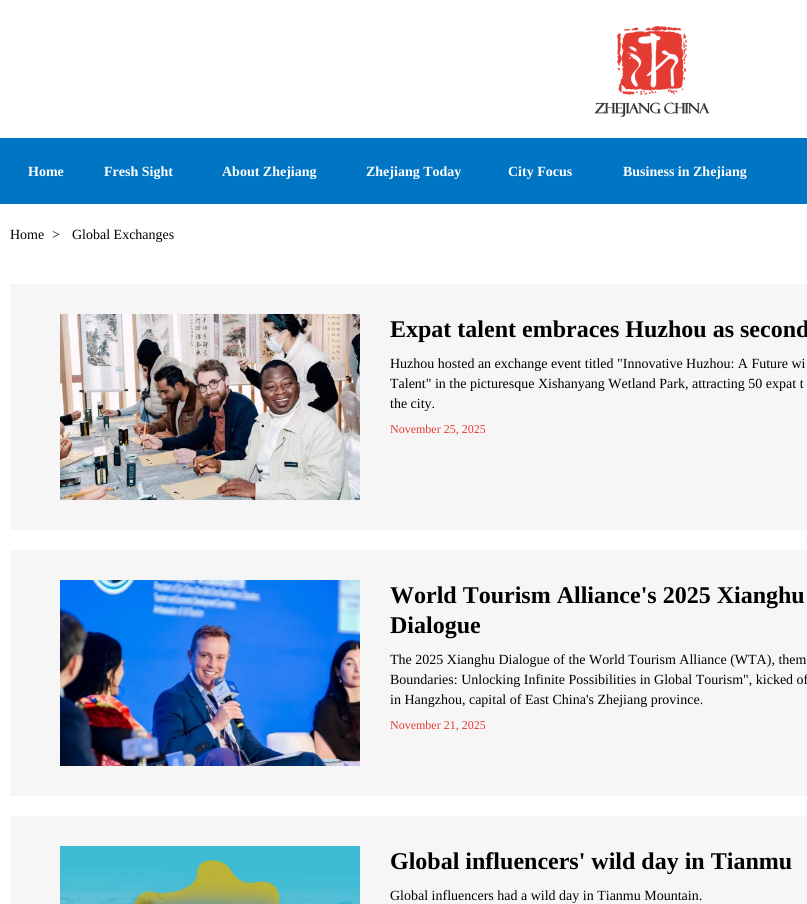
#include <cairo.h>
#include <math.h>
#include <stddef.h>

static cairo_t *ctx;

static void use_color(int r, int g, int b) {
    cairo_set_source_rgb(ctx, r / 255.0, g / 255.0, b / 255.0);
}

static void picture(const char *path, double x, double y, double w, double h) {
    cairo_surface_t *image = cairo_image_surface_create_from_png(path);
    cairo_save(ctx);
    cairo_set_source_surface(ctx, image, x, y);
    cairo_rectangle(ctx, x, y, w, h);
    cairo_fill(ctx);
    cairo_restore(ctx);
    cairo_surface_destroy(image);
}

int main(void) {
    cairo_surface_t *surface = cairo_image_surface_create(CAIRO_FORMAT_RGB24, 807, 904);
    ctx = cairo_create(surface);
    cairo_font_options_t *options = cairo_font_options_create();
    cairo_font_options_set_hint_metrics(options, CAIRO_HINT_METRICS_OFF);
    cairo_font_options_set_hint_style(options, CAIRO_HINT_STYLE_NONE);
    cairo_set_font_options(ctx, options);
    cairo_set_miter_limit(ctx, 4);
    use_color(255, 255, 255);
    cairo_paint(ctx);
    picture("img1.png", 594, 26, 116, 91);
    use_color(0, 117, 196);
    cairo_rectangle(ctx, 0, 138, 807, 66);
    cairo_fill(ctx);
    cairo_select_font_face(ctx, "Liberation Serif", CAIRO_FONT_SLANT_NORMAL, CAIRO_FONT_WEIGHT_BOLD);
    cairo_set_font_size(ctx, 14);
    use_color(255, 255, 255);
    cairo_move_to(ctx, 28, 176);
    cairo_show_text(ctx, "Home");
    cairo_move_to(ctx, 104, 176);
    cairo_show_text(ctx, "Fresh Sight");
    cairo_move_to(ctx, 222, 176);
    cairo_show_text(ctx, "About Zhejiang");
    cairo_move_to(ctx, 366, 176);
    cairo_show_text(ctx, "Zhejiang Today");
    cairo_move_to(ctx, 508, 176);
    cairo_show_text(ctx, "City Focus");
    cairo_move_to(ctx, 623, 176);
    cairo_show_text(ctx, "Business in Zhejiang");
    cairo_select_font_face(ctx, "Liberation Serif", CAIRO_FONT_SLANT_NORMAL, CAIRO_FONT_WEIGHT_NORMAL);
    use_color(0, 0, 0);
    cairo_move_to(ctx, 10, 239);
    cairo_show_text(ctx, "Home");
    cairo_move_to(ctx, 52, 239);
    cairo_show_text(ctx, ">");
    cairo_move_to(ctx, 72, 239);
    cairo_show_text(ctx, "Global Exchanges");
    use_color(246, 246, 246);
    cairo_rectangle(ctx, 10, 284, 797, 246);
    cairo_fill(ctx);
    picture("img2.png", 60, 314, 300, 186);
    cairo_select_font_face(ctx, "Liberation Serif", CAIRO_FONT_SLANT_NORMAL, CAIRO_FONT_WEIGHT_BOLD);
    cairo_set_font_size(ctx, 24);
    use_color(0, 0, 0);
    cairo_move_to(ctx, 390, 337);
    cairo_show_text(ctx, "Expat talent embraces Huzhou as second");
    cairo_select_font_face(ctx, "Liberation Serif", CAIRO_FONT_SLANT_NORMAL, CAIRO_FONT_WEIGHT_NORMAL);
    cairo_set_font_size(ctx, 14);
    cairo_move_to(ctx, 390, 368);
    cairo_show_text(ctx, "Huzhou hosted an exchange event titled \"Innovative Huzhou: A Future wi");
    cairo_move_to(ctx, 390, 388);
    cairo_show_text(ctx, "Talent\" in the picturesque Xishanyang Wetland Park, attracting 50 expat t");
    cairo_move_to(ctx, 390, 408);
    cairo_show_text(ctx, "the city.");
    cairo_set_font_size(ctx, 12);
    use_color(228, 59, 51);
    cairo_move_to(ctx, 390, 433);
    cairo_show_text(ctx, "November 25, 2025");
    use_color(246, 246, 246);
    cairo_rectangle(ctx, 10, 550, 797, 246);
    cairo_fill(ctx);
    picture("img3.png", 60, 580, 300, 186);
    cairo_select_font_face(ctx, "Liberation Serif", CAIRO_FONT_SLANT_NORMAL, CAIRO_FONT_WEIGHT_BOLD);
    cairo_set_font_size(ctx, 24);
    use_color(0, 0, 0);
    cairo_move_to(ctx, 390, 603);
    cairo_show_text(ctx, "World Tourism Alliance's 2025 Xianghu");
    cairo_move_to(ctx, 390, 633);
    cairo_show_text(ctx, "Dialogue");
    cairo_select_font_face(ctx, "Liberation Serif", CAIRO_FONT_SLANT_NORMAL, CAIRO_FONT_WEIGHT_NORMAL);
    cairo_set_font_size(ctx, 14);
    cairo_move_to(ctx, 390, 664);
    cairo_show_text(ctx, "The 2025 Xianghu Dialogue of the World Tourism Alliance (WTA), them");
    cairo_move_to(ctx, 390, 684);
    cairo_show_text(ctx, "Boundaries: Unlocking Infinite Possibilities in Global Tourism\", kicked of");
    cairo_move_to(ctx, 390, 704);
    cairo_show_text(ctx, "in Hangzhou, capital of East China's Zhejiang province.");
    cairo_set_font_size(ctx, 12);
    use_color(228, 59, 51);
    cairo_move_to(ctx, 390, 729);
    cairo_show_text(ctx, "November 21, 2025");
    use_color(246, 246, 246);
    cairo_rectangle(ctx, 10, 816, 797, 88);
    cairo_fill(ctx);
    picture("img4.png", 60, 846, 300, 58);
    cairo_select_font_face(ctx, "Liberation Serif", CAIRO_FONT_SLANT_NORMAL, CAIRO_FONT_WEIGHT_BOLD);
    cairo_set_font_size(ctx, 24);
    use_color(0, 0, 0);
    cairo_move_to(ctx, 390, 869);
    cairo_show_text(ctx, "Global influencers' wild day in Tianmu");
    cairo_select_font_face(ctx, "Liberation Serif", CAIRO_FONT_SLANT_NORMAL, CAIRO_FONT_WEIGHT_NORMAL);
    cairo_set_font_size(ctx, 14);
    cairo_move_to(ctx, 390, 900);
    cairo_show_text(ctx, "Global influencers had a wild day in Tianmu Mountain.");
    cairo_surface_write_to_png(surface, "result.png");
    cairo_font_options_destroy(options);
    cairo_destroy(ctx);
    cairo_surface_destroy(surface);
    return 0;
}
